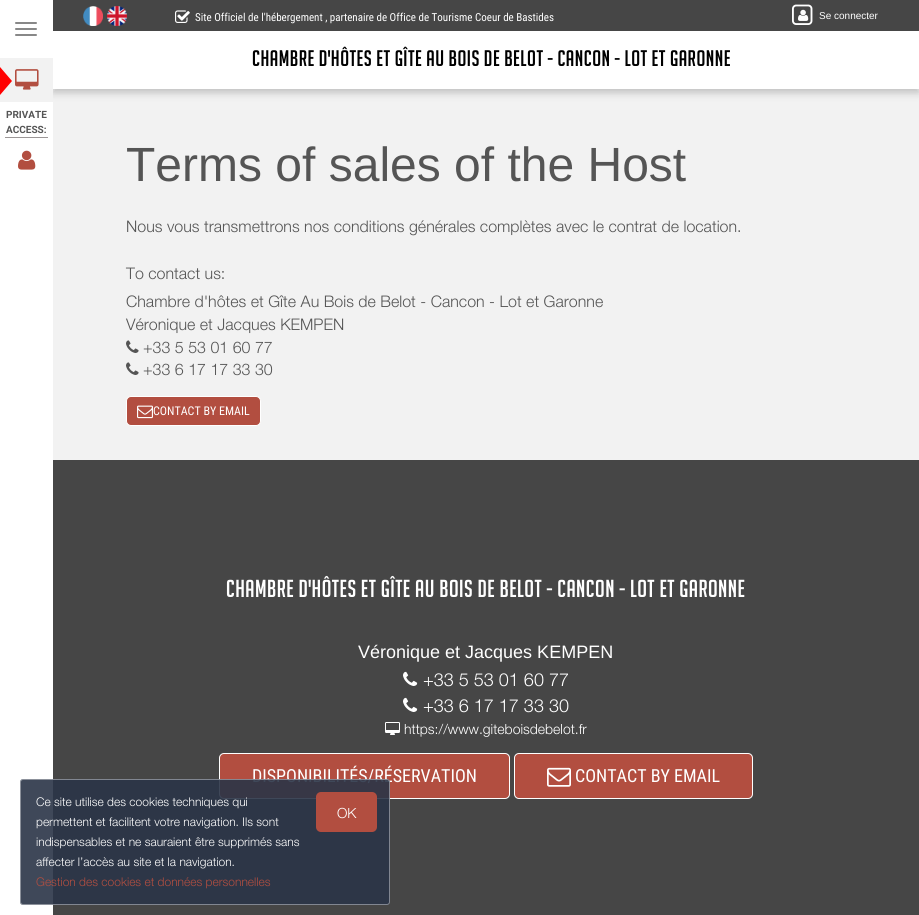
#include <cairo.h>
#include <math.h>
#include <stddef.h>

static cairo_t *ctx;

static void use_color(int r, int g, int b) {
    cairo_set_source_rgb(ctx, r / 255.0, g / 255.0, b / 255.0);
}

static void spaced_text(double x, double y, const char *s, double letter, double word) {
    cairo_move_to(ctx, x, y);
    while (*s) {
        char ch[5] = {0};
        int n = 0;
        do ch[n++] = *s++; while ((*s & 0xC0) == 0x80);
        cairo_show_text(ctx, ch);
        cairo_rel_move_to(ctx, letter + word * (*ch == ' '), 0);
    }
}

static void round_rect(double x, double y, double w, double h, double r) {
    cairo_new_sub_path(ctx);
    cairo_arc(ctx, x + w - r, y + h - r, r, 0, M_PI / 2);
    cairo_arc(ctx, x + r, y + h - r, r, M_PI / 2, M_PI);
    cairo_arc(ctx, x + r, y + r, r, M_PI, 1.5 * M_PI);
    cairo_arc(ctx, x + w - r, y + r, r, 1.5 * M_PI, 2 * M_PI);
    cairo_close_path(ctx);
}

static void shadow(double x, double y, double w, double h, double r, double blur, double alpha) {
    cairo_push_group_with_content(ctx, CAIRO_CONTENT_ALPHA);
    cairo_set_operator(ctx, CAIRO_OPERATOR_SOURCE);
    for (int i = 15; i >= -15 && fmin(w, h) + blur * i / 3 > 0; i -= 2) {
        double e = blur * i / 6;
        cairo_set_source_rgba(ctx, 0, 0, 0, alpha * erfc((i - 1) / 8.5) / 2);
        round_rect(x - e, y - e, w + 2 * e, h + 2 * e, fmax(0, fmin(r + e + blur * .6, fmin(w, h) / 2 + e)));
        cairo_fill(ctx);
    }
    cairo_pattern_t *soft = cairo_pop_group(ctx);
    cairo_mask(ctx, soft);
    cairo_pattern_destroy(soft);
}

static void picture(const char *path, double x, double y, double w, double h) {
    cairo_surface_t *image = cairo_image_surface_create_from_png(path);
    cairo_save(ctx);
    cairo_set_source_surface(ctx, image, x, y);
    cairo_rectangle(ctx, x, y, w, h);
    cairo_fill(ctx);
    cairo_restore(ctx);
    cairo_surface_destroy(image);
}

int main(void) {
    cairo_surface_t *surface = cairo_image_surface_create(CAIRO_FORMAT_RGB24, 919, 915);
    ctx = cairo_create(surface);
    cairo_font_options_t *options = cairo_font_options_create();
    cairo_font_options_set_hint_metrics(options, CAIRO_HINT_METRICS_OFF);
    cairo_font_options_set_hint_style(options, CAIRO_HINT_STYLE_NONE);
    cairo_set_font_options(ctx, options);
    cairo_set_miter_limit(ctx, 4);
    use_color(242, 242, 242);
    cairo_paint(ctx);
    use_color(0, 0, 0);
    shadow(53, 4, 866, 89, 0, 4, 0.2);
    use_color(255, 255, 255);
    cairo_rectangle(ctx, 0, 0, 53, 915);
    cairo_fill(ctx);
    use_color(136, 136, 136);
    round_rect(15, 22, 22, 2, 1);
    cairo_fill(ctx);
    round_rect(15, 28, 22, 2, 1);
    cairo_fill(ctx);
    round_rect(15, 34, 22, 2, 1);
    cairo_fill(ctx);
    use_color(242, 242, 242);
    cairo_rectangle(ctx, 0, 58, 53, 44);
    cairo_fill(ctx);
    use_color(255, 0, 0);
    cairo_new_path(ctx);
    cairo_move_to(ctx, 0, 95);
    cairo_line_to(ctx, 0, 67);
    cairo_line_to(ctx, 12, 81);
    cairo_close_path(ctx);
    cairo_fill(ctx);
    picture("img1.png", 15, 69, 24, 21);
    use_color(155, 150, 150);
    cairo_rectangle(ctx, 5, 137, 43, 1);
    cairo_fill(ctx);
    cairo_select_font_face(ctx, "Roboto", CAIRO_FONT_SLANT_NORMAL, CAIRO_FONT_WEIGHT_BOLD);
    cairo_set_font_size(ctx, 10);
    use_color(85, 85, 85);
    cairo_move_to(ctx, 6, 118);
    cairo_show_text(ctx, "PRIVATE");
    cairo_move_to(ctx, 6, 133);
    cairo_show_text(ctx, "ACCESS:");
    picture("img2.png", 18, 150, 18, 20);
    use_color(255, 255, 255);
    cairo_rectangle(ctx, 53, 31, 866, 58);
    cairo_fill(ctx);
    use_color(70, 70, 70);
    cairo_rectangle(ctx, 53, 0, 866, 31);
    cairo_fill(ctx);
    picture("img3.png", 83, 6, 20, 20);
    picture("img4.png", 107, 6, 20, 20);
    picture("img5.png", 175, 10, 15, 13);
    cairo_select_font_face(ctx, "Roboto Condensed", CAIRO_FONT_SLANT_NORMAL, CAIRO_FONT_WEIGHT_NORMAL);
    cairo_set_font_size(ctx, 11);
    use_color(255, 255, 255);
    cairo_move_to(ctx, 195, 21);
    cairo_show_text(ctx, "Site Officiel de l'hébergement , partenaire de Office de Tourisme Coeur de Bastides");
    picture("img6.png", 792, 4, 21, 21);
    picture("img7.png", 798, 9, 11, 12);
    cairo_select_font_face(ctx, "Liberation Sans", CAIRO_FONT_SLANT_NORMAL, CAIRO_FONT_WEIGHT_NORMAL);
    cairo_set_font_size(ctx, 10);
    cairo_move_to(ctx, 819, 19);
    cairo_show_text(ctx, "Se connecter");
    cairo_select_font_face(ctx, "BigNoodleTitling", CAIRO_FONT_SLANT_NORMAL, CAIRO_FONT_WEIGHT_NORMAL);
    cairo_set_font_size(ctx, 22);
    use_color(0, 0, 0);
    spaced_text(252, 66, "CHAMBRE D'HÔTES ET GÎTE AU BOIS DE BELOT - CANCON - LOT ET GARONNE", 0.5, 0);
    cairo_select_font_face(ctx, "Liberation Sans", CAIRO_FONT_SLANT_NORMAL, CAIRO_FONT_WEIGHT_NORMAL);
    cairo_set_font_size(ctx, 48);
    use_color(85, 85, 85);
    cairo_move_to(ctx, 126, 181);
    cairo_show_text(ctx, "Terms of sales of the Host");
    cairo_select_font_face(ctx, "Helvetica Neue Light", CAIRO_FONT_SLANT_NORMAL, CAIRO_FONT_WEIGHT_NORMAL);
    cairo_set_font_size(ctx, 16);
    cairo_move_to(ctx, 126, 232);
    cairo_show_text(ctx, "Nous vous transmettrons nos conditions générales complètes avec le contrat de location.");
    cairo_move_to(ctx, 126, 279);
    cairo_show_text(ctx, "To contact us:");
    cairo_move_to(ctx, 126, 307);
    cairo_show_text(ctx, "Chambre d'hôtes et Gîte Au Bois de Belot - Cancon - Lot et Garonne");
    cairo_move_to(ctx, 126, 330);
    cairo_show_text(ctx, "Véronique et Jacques KEMPEN");
    picture("img8.png", 126, 340, 13, 13);
    cairo_move_to(ctx, 143, 353);
    cairo_show_text(ctx, "+33 5 53 01 60 77");
    picture("img8.png", 126, 362, 13, 13);
    cairo_move_to(ctx, 143, 375);
    cairo_show_text(ctx, "+33 6 17 17 33 30");
    use_color(178, 78, 64);
    round_rect(126.5, 396.5, 134, 29, 4.5);
    cairo_fill_preserve(ctx);
    use_color(255, 255, 255);
    cairo_set_line_width(ctx, 1);
    cairo_stroke(ctx);
    picture("img9.png", 137, 405, 16, 14);
    cairo_select_font_face(ctx, "Roboto Condensed", CAIRO_FONT_SLANT_NORMAL, CAIRO_FONT_WEIGHT_NORMAL);
    cairo_set_font_size(ctx, 12);
    cairo_move_to(ctx, 153, 415);
    cairo_show_text(ctx, "CONTACT BY EMAIL");
    use_color(70, 70, 70);
    cairo_rectangle(ctx, 53, 460, 866, 455);
    cairo_fill(ctx);
    cairo_select_font_face(ctx, "BigNoodleTitling", CAIRO_FONT_SLANT_NORMAL, CAIRO_FONT_WEIGHT_NORMAL);
    cairo_set_font_size(ctx, 24);
    use_color(255, 255, 255);
    spaced_text(226, 597, "CHAMBRE D'HÔTES ET GÎTE AU BOIS DE BELOT - CANCON - LOT ET GARONNE", 0.5, 0);
    cairo_select_font_face(ctx, "Liberation Sans", CAIRO_FONT_SLANT_NORMAL, CAIRO_FONT_WEIGHT_NORMAL);
    cairo_set_font_size(ctx, 18);
    cairo_move_to(ctx, 358, 658);
    cairo_show_text(ctx, "Véronique et Jacques KEMPEN");
    picture("img10.png", 403, 671, 15, 15);
    cairo_select_font_face(ctx, "Helvetica Neue Light", CAIRO_FONT_SLANT_NORMAL, CAIRO_FONT_WEIGHT_NORMAL);
    cairo_move_to(ctx, 423, 686);
    cairo_show_text(ctx, "+33 5 53 01 60 77");
    picture("img10.png", 403, 697, 15, 15);
    cairo_move_to(ctx, 423, 712);
    cairo_show_text(ctx, "+33 6 17 17 33 30");
    picture("img11.png", 385, 722, 15, 13);
    cairo_set_font_size(ctx, 14);
    cairo_move_to(ctx, 404, 734);
    cairo_show_text(ctx, "https://www.giteboisdebelot.fr");
    use_color(178, 78, 64);
    round_rect(219.5, 753.5, 290, 45, 4.5);
    cairo_fill_preserve(ctx);
    use_color(255, 255, 255);
    cairo_stroke(ctx);
    cairo_select_font_face(ctx, "Roboto Condensed", CAIRO_FONT_SLANT_NORMAL, CAIRO_FONT_WEIGHT_NORMAL);
    cairo_set_font_size(ctx, 18);
    cairo_move_to(ctx, 252, 782);
    cairo_show_text(ctx, "DISPONIBILITÉS/RÉSERVATION");
    use_color(178, 78, 64);
    round_rect(514.5, 753.5, 238, 45, 4.5);
    cairo_fill_preserve(ctx);
    use_color(255, 255, 255);
    cairo_stroke(ctx);
    picture("img12.png", 547, 767, 24, 20);
    cairo_move_to(ctx, 575, 782);
    cairo_show_text(ctx, "CONTACT BY EMAIL");
    cairo_set_source_rgba(ctx, 0.169, 0.208, 0.278, 0.9);
    round_rect(20, 779, 370, 126, 3);
    cairo_fill(ctx);
    round_rect(20.5, 779.5, 369, 125, 2.5);
    cairo_set_source_rgba(ctx, 1, 1, 1, 0.4);
    cairo_stroke(ctx);
    cairo_select_font_face(ctx, "Helvetica Neue Light", CAIRO_FONT_SLANT_NORMAL, CAIRO_FONT_WEIGHT_NORMAL);
    cairo_set_font_size(ctx, 12);
    use_color(255, 255, 255);
    cairo_move_to(ctx, 36, 806);
    cairo_show_text(ctx, "Ce site utilise des cookies techniques qui");
    use_color(178, 78, 64);
    round_rect(316, 792, 61, 40, 5);
    cairo_fill(ctx);
    cairo_set_font_size(ctx, 14);
    use_color(255, 255, 255);
    cairo_move_to(ctx, 337, 818);
    cairo_show_text(ctx, "OK");
    cairo_set_font_size(ctx, 12);
    cairo_move_to(ctx, 36, 826);
    cairo_show_text(ctx, "permettent et facilitent votre navigation. Ils sont");
    cairo_move_to(ctx, 36, 846);
    cairo_show_text(ctx, "indispensables et ne sauraient être supprimés sans");
    cairo_move_to(ctx, 36, 866);
    cairo_show_text(ctx, "affecter l’accès au site et la navigation.");
    use_color(178, 78, 64);
    cairo_move_to(ctx, 36, 886);
    cairo_show_text(ctx, "Gestion des cookies et données personnelles");
    cairo_surface_write_to_png(surface, "result.png");
    cairo_font_options_destroy(options);
    cairo_destroy(ctx);
    cairo_surface_destroy(surface);
    return 0;
}
